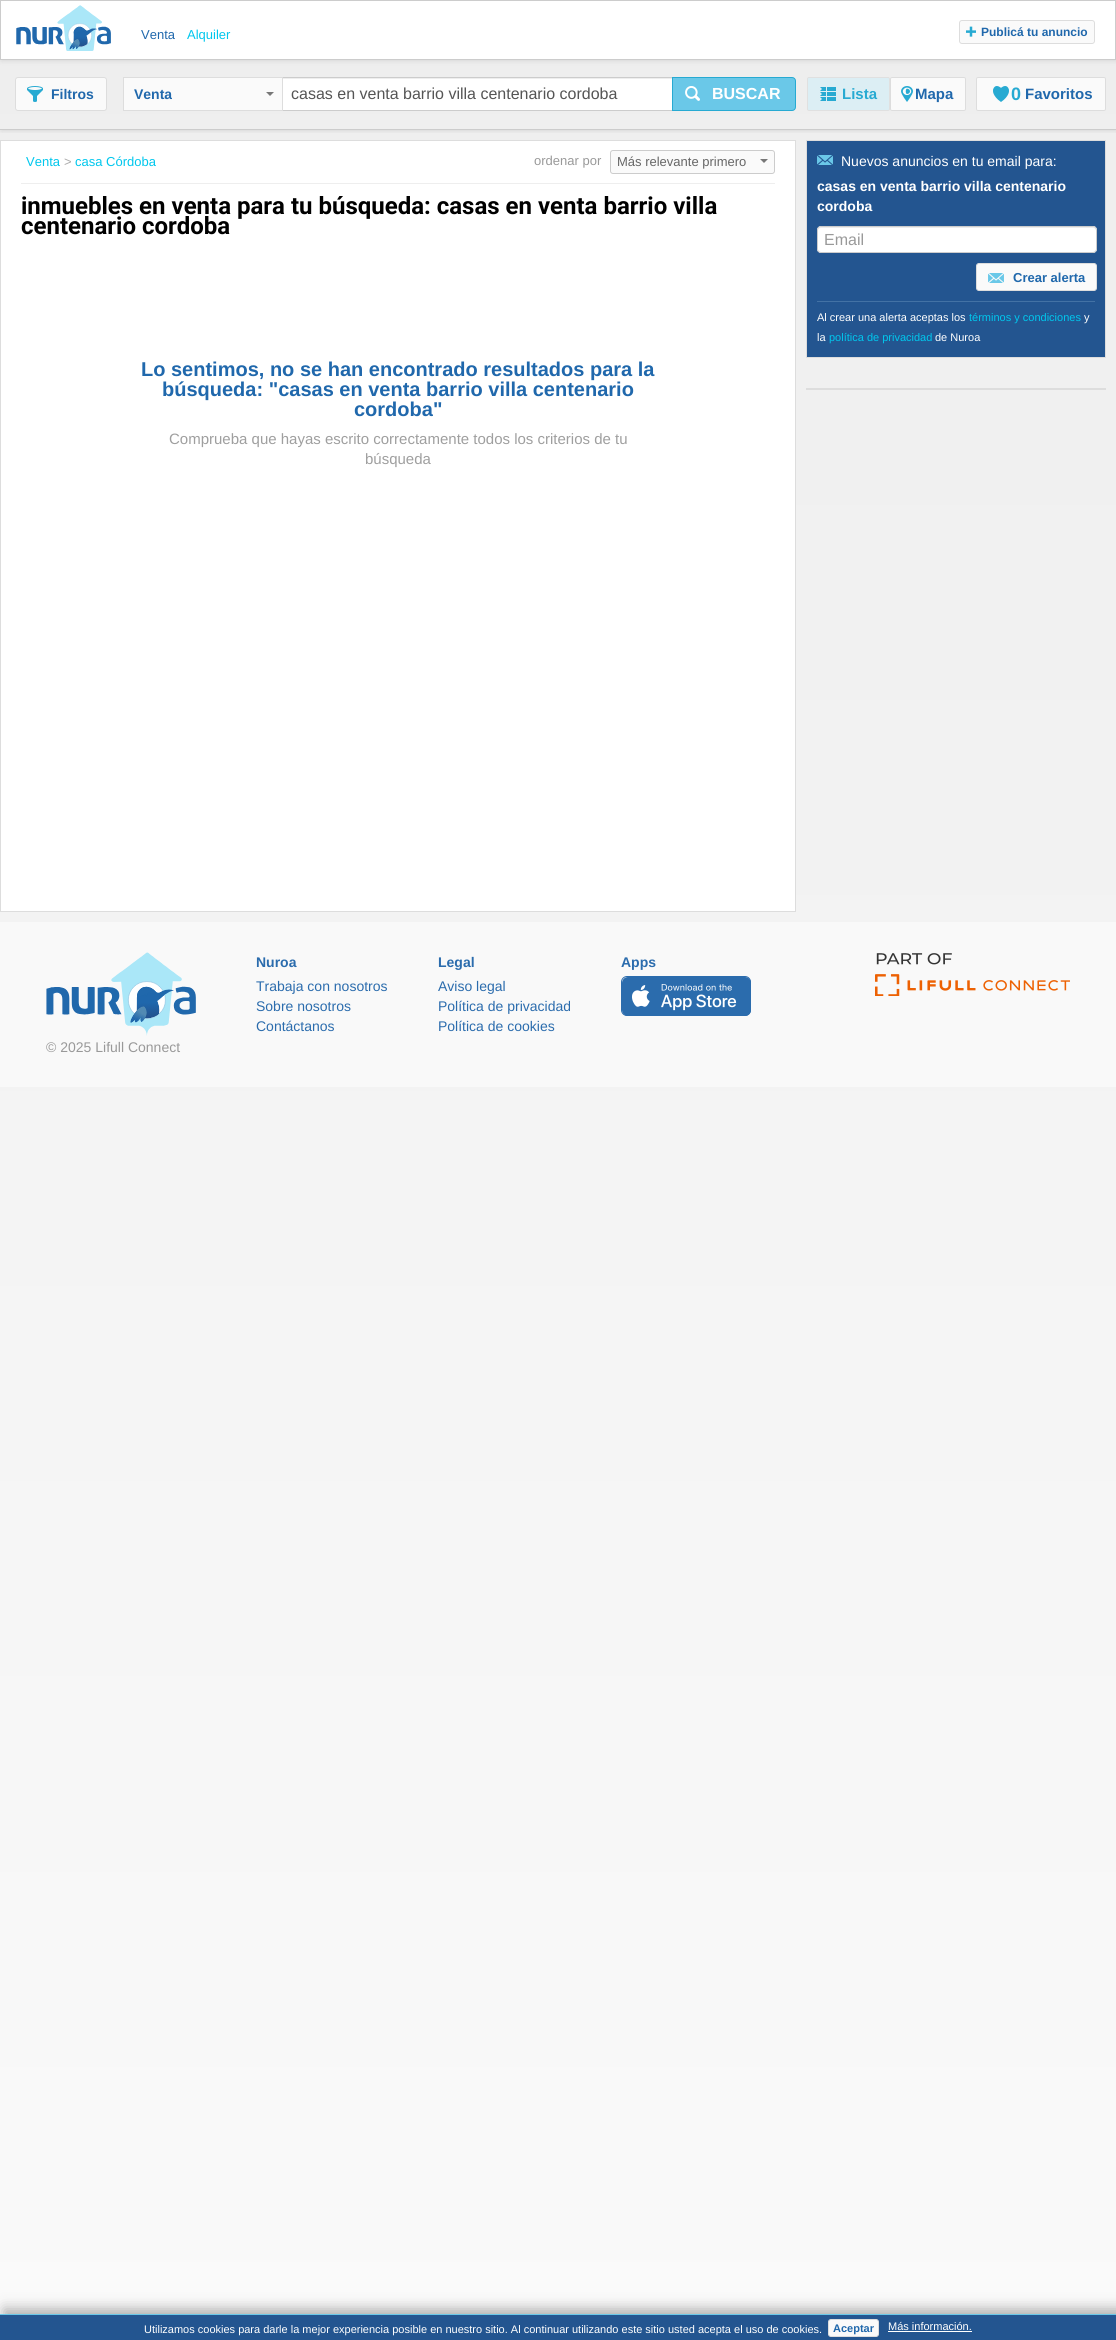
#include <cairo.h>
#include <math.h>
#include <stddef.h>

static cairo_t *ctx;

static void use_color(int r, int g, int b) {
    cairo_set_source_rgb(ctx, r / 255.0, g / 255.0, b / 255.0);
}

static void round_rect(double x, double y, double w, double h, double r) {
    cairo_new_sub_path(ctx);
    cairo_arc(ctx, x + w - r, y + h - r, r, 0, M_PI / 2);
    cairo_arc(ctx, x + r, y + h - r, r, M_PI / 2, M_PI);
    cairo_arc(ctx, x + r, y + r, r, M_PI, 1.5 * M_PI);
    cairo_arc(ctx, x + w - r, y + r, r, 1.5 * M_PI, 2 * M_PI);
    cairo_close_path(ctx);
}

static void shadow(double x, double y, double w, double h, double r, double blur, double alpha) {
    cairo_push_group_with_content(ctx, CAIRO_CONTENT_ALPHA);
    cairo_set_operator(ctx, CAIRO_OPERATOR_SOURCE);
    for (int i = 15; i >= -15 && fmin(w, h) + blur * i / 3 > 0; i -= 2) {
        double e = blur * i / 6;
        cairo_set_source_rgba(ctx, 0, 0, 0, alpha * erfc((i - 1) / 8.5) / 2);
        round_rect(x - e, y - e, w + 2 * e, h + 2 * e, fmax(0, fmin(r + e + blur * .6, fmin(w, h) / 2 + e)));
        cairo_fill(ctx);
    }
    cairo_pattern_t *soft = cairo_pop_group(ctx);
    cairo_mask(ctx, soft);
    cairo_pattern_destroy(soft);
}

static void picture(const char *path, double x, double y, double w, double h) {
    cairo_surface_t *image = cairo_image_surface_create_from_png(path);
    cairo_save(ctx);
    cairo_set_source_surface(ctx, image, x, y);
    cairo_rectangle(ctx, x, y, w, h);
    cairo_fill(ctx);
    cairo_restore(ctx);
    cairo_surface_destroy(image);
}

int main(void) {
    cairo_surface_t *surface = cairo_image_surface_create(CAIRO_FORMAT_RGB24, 1116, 2340);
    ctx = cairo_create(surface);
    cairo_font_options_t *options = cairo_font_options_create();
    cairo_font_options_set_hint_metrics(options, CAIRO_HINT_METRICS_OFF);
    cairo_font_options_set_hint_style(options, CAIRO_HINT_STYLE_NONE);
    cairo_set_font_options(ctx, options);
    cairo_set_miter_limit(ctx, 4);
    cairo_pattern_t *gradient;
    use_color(255, 255, 255);
    cairo_paint(ctx);
    gradient = cairo_pattern_create_linear(558, 0, 558, 2340);
    cairo_pattern_add_color_stop_rgba(gradient, 0, 0.933, 0.933, 0.933, 1);
    cairo_pattern_add_color_stop_rgba(gradient, 1, 0.98, 0.98, 0.98, 1);
    cairo_set_source(ctx, gradient);
    cairo_pattern_destroy(gradient);
    cairo_rectangle(ctx, 0, 60, 1116, 2254);
    cairo_fill(ctx);
    cairo_save(ctx);
    cairo_rectangle(ctx, 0, 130, 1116, 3);
    cairo_clip(ctx);
    use_color(0, 0, 0);
    shadow(1, 1, 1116, 130, 0, 2.5, 0.1);
    cairo_restore(ctx);
    use_color(0, 0, 0);
    shadow(1, 1, 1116, 60, 0, 2.5, 0.1);
    use_color(255, 255, 255);
    cairo_rectangle(ctx, 0.5, 0.5, 1115, 59);
    cairo_fill_preserve(ctx);
    use_color(204, 204, 204);
    cairo_set_line_width(ctx, 1);
    cairo_stroke(ctx);
    picture("img1.png", 16, 5, 95, 46);
    cairo_select_font_face(ctx, "Liberation Sans", CAIRO_FONT_SLANT_NORMAL, CAIRO_FONT_WEIGHT_NORMAL);
    cairo_set_font_size(ctx, 13);
    use_color(32, 104, 172);
    cairo_move_to(ctx, 141, 39);
    cairo_show_text(ctx, "Venta");
    use_color(0, 199, 237);
    cairo_move_to(ctx, 187, 39);
    cairo_show_text(ctx, "Alquiler");
    use_color(250, 250, 250);
    round_rect(959.5, 20.5, 135, 23, 2.5);
    cairo_fill_preserve(ctx);
    use_color(221, 221, 221);
    cairo_stroke(ctx);
    picture("img2.png", 966, 26, 10, 11);
    cairo_select_font_face(ctx, "Liberation Sans", CAIRO_FONT_SLANT_NORMAL, CAIRO_FONT_WEIGHT_BOLD);
    cairo_set_font_size(ctx, 12);
    use_color(32, 104, 172);
    cairo_move_to(ctx, 981, 36);
    cairo_show_text(ctx, "Publicá tu anuncio");
    use_color(204, 204, 204);
    cairo_rectangle(ctx, 0, 129, 1116, 1);
    cairo_fill(ctx);
    use_color(250, 250, 250);
    round_rect(15.5, 77.5, 91, 33, 2.5);
    cairo_fill_preserve(ctx);
    use_color(221, 221, 221);
    cairo_stroke(ctx);
    picture("img3.png", 27, 86, 16, 16);
    cairo_set_font_size(ctx, 14);
    use_color(32, 104, 172);
    cairo_move_to(ctx, 51, 99);
    cairo_show_text(ctx, "Filtros");
    use_color(255, 255, 255);
    cairo_rectangle(ctx, 283, 79, 389, 31);
    cairo_fill(ctx);
    cairo_rectangle(ctx, 125.5, 77.5, 660, 33);
    use_color(204, 204, 204);
    cairo_stroke(ctx);
    use_color(250, 250, 250);
    cairo_rectangle(ctx, 123.5, 77.5, 159, 33);
    cairo_fill_preserve(ctx);
    use_color(221, 221, 221);
    cairo_stroke(ctx);
    use_color(32, 104, 172);
    cairo_move_to(ctx, 134, 99);
    cairo_show_text(ctx, "Venta");
    use_color(119, 119, 119);
    cairo_new_path(ctx);
    cairo_move_to(ctx, 266, 92);
    cairo_line_to(ctx, 274, 92);
    cairo_line_to(ctx, 270, 96);
    cairo_close_path(ctx);
    cairo_fill(ctx);
    cairo_select_font_face(ctx, "Liberation Sans", CAIRO_FONT_SLANT_NORMAL, CAIRO_FONT_WEIGHT_NORMAL);
    cairo_set_font_size(ctx, 16);
    use_color(85, 85, 85);
    cairo_move_to(ctx, 291, 99);
    cairo_show_text(ctx, "casas en venta barrio villa centenario cordoba");
    use_color(106, 200, 232);
    cairo_new_path(ctx);
    cairo_move_to(ctx, 672.5, 77.5);
    cairo_line_to(ctx, 792, 77.5);
    cairo_curve_to(ctx, 794, 77.5, 795.5, 79, 795.5, 81);
    cairo_line_to(ctx, 795.5, 107);
    cairo_curve_to(ctx, 795.5, 109, 794, 110.5, 792, 110.5);
    cairo_line_to(ctx, 672.5, 110.5);
    cairo_close_path(ctx);
    cairo_fill_preserve(ctx);
    use_color(39, 170, 210);
    cairo_stroke(ctx);
    picture("img4.png", 685, 86, 15, 15);
    cairo_select_font_face(ctx, "Liberation Sans", CAIRO_FONT_SLANT_NORMAL, CAIRO_FONT_WEIGHT_BOLD);
    use_color(255, 255, 255);
    cairo_move_to(ctx, 712, 99);
    cairo_show_text(ctx, "BUSCAR");
    use_color(220, 238, 244);
    round_rect(807.5, 77.5, 82, 33, 1.5);
    cairo_fill_preserve(ctx);
    use_color(224, 224, 224);
    cairo_stroke(ctx);
    picture("img5.png", 820, 87, 16, 14);
    cairo_set_font_size(ctx, 15);
    use_color(39, 170, 210);
    cairo_move_to(ctx, 842, 99);
    cairo_show_text(ctx, "Lista");
    use_color(250, 250, 250);
    round_rect(890.5, 77.5, 75, 33, 1.5);
    cairo_fill_preserve(ctx);
    use_color(221, 221, 221);
    cairo_stroke(ctx);
    picture("img6.png", 901, 86, 12, 16);
    use_color(32, 104, 172);
    cairo_move_to(ctx, 915, 99);
    cairo_show_text(ctx, "Mapa");
    use_color(250, 250, 250);
    round_rect(976.5, 77.5, 129, 33, 1.5);
    cairo_fill_preserve(ctx);
    use_color(221, 221, 221);
    cairo_stroke(ctx);
    picture("img7.png", 993, 86, 16, 16);
    cairo_set_font_size(ctx, 18);
    use_color(39, 170, 210);
    cairo_move_to(ctx, 1011, 100);
    cairo_show_text(ctx, "0");
    cairo_set_font_size(ctx, 15);
    use_color(32, 104, 172);
    cairo_move_to(ctx, 1025, 99);
    cairo_show_text(ctx, "Favoritos");
    use_color(255, 255, 255);
    cairo_rectangle(ctx, 0.5, 140.5, 795, 771);
    cairo_fill_preserve(ctx);
    use_color(221, 221, 221);
    cairo_stroke(ctx);
    cairo_select_font_face(ctx, "Liberation Sans", CAIRO_FONT_SLANT_NORMAL, CAIRO_FONT_WEIGHT_NORMAL);
    cairo_set_font_size(ctx, 13);
    use_color(153, 153, 153);
    cairo_move_to(ctx, 534, 165);
    cairo_show_text(ctx, "ordenar por");
    use_color(250, 250, 250);
    round_rect(610.5, 150.5, 164, 23, 2.5);
    cairo_fill_preserve(ctx);
    use_color(204, 204, 204);
    cairo_stroke(ctx);
    use_color(102, 102, 102);
    cairo_move_to(ctx, 617, 166);
    cairo_show_text(ctx, "Más relevante primero");
    use_color(119, 119, 119);
    cairo_new_path(ctx);
    cairo_move_to(ctx, 760, 159);
    cairo_line_to(ctx, 768, 159);
    cairo_line_to(ctx, 764, 163);
    cairo_close_path(ctx);
    cairo_fill(ctx);
    cairo_select_font_face(ctx, "Roboto", CAIRO_FONT_SLANT_NORMAL, CAIRO_FONT_WEIGHT_BOLD);
    cairo_set_font_size(ctx, 24);
    use_color(0, 0, 0);
    cairo_move_to(ctx, 21, 214);
    cairo_show_text(ctx, "inmuebles en venta para tu búsqueda: casas en venta barrio villa");
    cairo_move_to(ctx, 21, 234);
    cairo_show_text(ctx, "centenario cordoba");
    use_color(238, 238, 238);
    cairo_rectangle(ctx, 21, 183, 754, 1);
    cairo_fill(ctx);
    cairo_select_font_face(ctx, "Liberation Sans", CAIRO_FONT_SLANT_NORMAL, CAIRO_FONT_WEIGHT_NORMAL);
    cairo_set_font_size(ctx, 13);
    use_color(0, 199, 237);
    cairo_move_to(ctx, 26, 166);
    cairo_show_text(ctx, "Venta");
    use_color(170, 170, 170);
    cairo_move_to(ctx, 64, 166);
    cairo_show_text(ctx, ">");
    use_color(0, 199, 237);
    cairo_move_to(ctx, 75, 166);
    cairo_show_text(ctx, "casa Córdoba");
    cairo_select_font_face(ctx, "Liberation Sans", CAIRO_FONT_SLANT_NORMAL, CAIRO_FONT_WEIGHT_BOLD);
    cairo_set_font_size(ctx, 20);
    use_color(32, 104, 172);
    cairo_move_to(ctx, 141, 376);
    cairo_show_text(ctx, "Lo sentimos, no se han encontrado resultados para la");
    cairo_move_to(ctx, 162, 396);
    cairo_show_text(ctx, "búsqueda: \"casas en venta barrio villa centenario");
    cairo_move_to(ctx, 354, 416);
    cairo_show_text(ctx, "cordoba\"");
    cairo_select_font_face(ctx, "Liberation Sans", CAIRO_FONT_SLANT_NORMAL, CAIRO_FONT_WEIGHT_NORMAL);
    cairo_set_font_size(ctx, 15);
    use_color(159, 159, 159);
    cairo_move_to(ctx, 169, 444);
    cairo_show_text(ctx, "Comprueba que hayas escrito correctamente todos los criterios de tu");
    cairo_move_to(ctx, 365, 464);
    cairo_show_text(ctx, "búsqueda");
    use_color(35, 85, 144);
    cairo_rectangle(ctx, 806.5, 140.5, 299, 217);
    cairo_fill_preserve(ctx);
    use_color(221, 221, 221);
    cairo_stroke(ctx);
    picture("img8.png", 817, 155, 16, 10);
    cairo_set_font_size(ctx, 14);
    use_color(255, 255, 255);
    cairo_move_to(ctx, 841, 166);
    cairo_show_text(ctx, "Nuevos anuncios en tu email para:");
    cairo_select_font_face(ctx, "Liberation Sans", CAIRO_FONT_SLANT_NORMAL, CAIRO_FONT_WEIGHT_BOLD);
    cairo_move_to(ctx, 817, 191);
    cairo_show_text(ctx, "casas en venta barrio villa centenario");
    cairo_move_to(ctx, 817, 211);
    cairo_show_text(ctx, "cordoba");
    round_rect(817, 226, 280, 27, 4);
    cairo_fill(ctx);
    use_color(236, 236, 236);
    cairo_new_path(ctx);
    cairo_move_to(ctx, 821, 228);
    cairo_line_to(ctx, 1093, 228);
    cairo_curve_to(ctx, 1095, 228, 1096, 229, 1096, 231);
    cairo_line_to(ctx, 1096, 230);
    cairo_curve_to(ctx, 1096, 228, 1095, 227, 1093, 227);
    cairo_line_to(ctx, 821, 227);
    cairo_curve_to(ctx, 819, 227, 818, 228, 818, 230);
    cairo_line_to(ctx, 818, 231);
    cairo_curve_to(ctx, 818, 229, 819, 228, 821, 228);
    cairo_close_path(ctx);
    cairo_fill(ctx);
    round_rect(817.5, 226.5, 279, 26, 3.5);
    use_color(204, 204, 204);
    cairo_stroke(ctx);
    cairo_select_font_face(ctx, "Liberation Sans", CAIRO_FONT_SLANT_NORMAL, CAIRO_FONT_WEIGHT_NORMAL);
    cairo_set_font_size(ctx, 16);
    use_color(153, 153, 153);
    cairo_move_to(ctx, 824, 245);
    cairo_show_text(ctx, "Email");
    use_color(250, 250, 250);
    round_rect(976.5, 263.5, 120, 27, 2.5);
    cairo_fill_preserve(ctx);
    use_color(221, 221, 221);
    cairo_stroke(ctx);
    picture("img9.png", 988, 273, 16, 10);
    cairo_select_font_face(ctx, "Liberation Sans", CAIRO_FONT_SLANT_NORMAL, CAIRO_FONT_WEIGHT_BOLD);
    cairo_set_font_size(ctx, 13);
    use_color(32, 104, 172);
    cairo_move_to(ctx, 1013, 282);
    cairo_show_text(ctx, "Crear alerta");
    use_color(67, 114, 165);
    cairo_rectangle(ctx, 817, 301, 278, 1);
    cairo_fill(ctx);
    cairo_select_font_face(ctx, "Liberation Sans", CAIRO_FONT_SLANT_NORMAL, CAIRO_FONT_WEIGHT_NORMAL);
    cairo_set_font_size(ctx, 11);
    use_color(255, 255, 255);
    cairo_move_to(ctx, 817, 321);
    cairo_show_text(ctx, "Al crear una alerta aceptas los");
    use_color(0, 199, 237);
    cairo_move_to(ctx, 969, 321);
    cairo_show_text(ctx, "términos y condiciones");
    use_color(255, 255, 255);
    cairo_move_to(ctx, 1084, 321);
    cairo_show_text(ctx, "y");
    cairo_move_to(ctx, 817, 341);
    cairo_show_text(ctx, "la");
    use_color(0, 199, 237);
    cairo_move_to(ctx, 829, 341);
    cairo_show_text(ctx, "política de privacidad");
    use_color(255, 255, 255);
    cairo_move_to(ctx, 935, 341);
    cairo_show_text(ctx, "de Nuroa");
    use_color(221, 221, 221);
    cairo_rectangle(ctx, 806, 388, 300, 2);
    cairo_fill(ctx);
    use_color(249, 249, 249);
    cairo_rectangle(ctx, 0, 922, 1116, 165);
    cairo_fill(ctx);
    picture("img10.png", 46, 952, 150, 84);
    cairo_set_font_size(ctx, 14);
    use_color(153, 153, 153);
    cairo_move_to(ctx, 46, 1052);
    cairo_show_text(ctx, "© 2025 Lifull Connect");
    cairo_select_font_face(ctx, "Liberation Sans", CAIRO_FONT_SLANT_NORMAL, CAIRO_FONT_WEIGHT_BOLD);
    use_color(43, 108, 173);
    cairo_move_to(ctx, 438, 967);
    cairo_show_text(ctx, "Legal");
    cairo_select_font_face(ctx, "Liberation Sans", CAIRO_FONT_SLANT_NORMAL, CAIRO_FONT_WEIGHT_NORMAL);
    cairo_move_to(ctx, 438, 991);
    cairo_show_text(ctx, "Aviso legal");
    cairo_move_to(ctx, 438, 1011);
    cairo_show_text(ctx, "Política de privacidad");
    cairo_move_to(ctx, 438, 1031);
    cairo_show_text(ctx, "Política de cookies");
    use_color(50, 50, 50);
    shadow(4, 2309, 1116, 26, 0, 7, 0.4);
    use_color(35, 85, 144);
    cairo_rectangle(ctx, 0, 2315, 1116, 25);
    cairo_fill(ctx);
    use_color(106, 200, 232);
    cairo_rectangle(ctx, 0, 2314, 1116, 1);
    cairo_fill(ctx);
    cairo_set_font_size(ctx, 11);
    use_color(255, 255, 255);
    cairo_move_to(ctx, 144, 2333);
    cairo_show_text(ctx, "Utilizamos cookies para darle la mejor experiencia posible en nuestro sitio. Al continuar utilizando este sitio usted acepta el uso de cookies.");
    use_color(250, 250, 250);
    round_rect(828.5, 2319.5, 50, 17, 2.5);
    cairo_fill_preserve(ctx);
    use_color(221, 221, 221);
    cairo_stroke(ctx);
    cairo_select_font_face(ctx, "Liberation Sans", CAIRO_FONT_SLANT_NORMAL, CAIRO_FONT_WEIGHT_BOLD);
    use_color(32, 104, 172);
    cairo_move_to(ctx, 833, 2332);
    cairo_show_text(ctx, "Aceptar");
    cairo_select_font_face(ctx, "Liberation Sans", CAIRO_FONT_SLANT_NORMAL, CAIRO_FONT_WEIGHT_NORMAL);
    use_color(255, 255, 255);
    cairo_move_to(ctx, 888, 2330);
    cairo_show_text(ctx, "Más información.");
    cairo_rectangle(ctx, 888, 2331, 84, 1);
    cairo_fill(ctx);
    cairo_select_font_face(ctx, "Liberation Sans", CAIRO_FONT_SLANT_NORMAL, CAIRO_FONT_WEIGHT_BOLD);
    cairo_set_font_size(ctx, 14);
    use_color(43, 108, 173);
    cairo_move_to(ctx, 256, 967);
    cairo_show_text(ctx, "Nuroa");
    cairo_select_font_face(ctx, "Liberation Sans", CAIRO_FONT_SLANT_NORMAL, CAIRO_FONT_WEIGHT_NORMAL);
    cairo_move_to(ctx, 256, 991);
    cairo_show_text(ctx, "Trabaja con nosotros");
    cairo_move_to(ctx, 256, 1011);
    cairo_show_text(ctx, "Sobre nosotros");
    cairo_move_to(ctx, 256, 1031);
    cairo_show_text(ctx, "Contáctanos");
    cairo_select_font_face(ctx, "Liberation Sans", CAIRO_FONT_SLANT_NORMAL, CAIRO_FONT_WEIGHT_BOLD);
    cairo_move_to(ctx, 621, 967);
    cairo_show_text(ctx, "Apps");
    picture("img11.png", 621, 976, 130, 40);
    picture("img12.png", 875, 953, 195, 43);
    cairo_surface_write_to_png(surface, "result.png");
    cairo_font_options_destroy(options);
    cairo_destroy(ctx);
    cairo_surface_destroy(surface);
    return 0;
}
